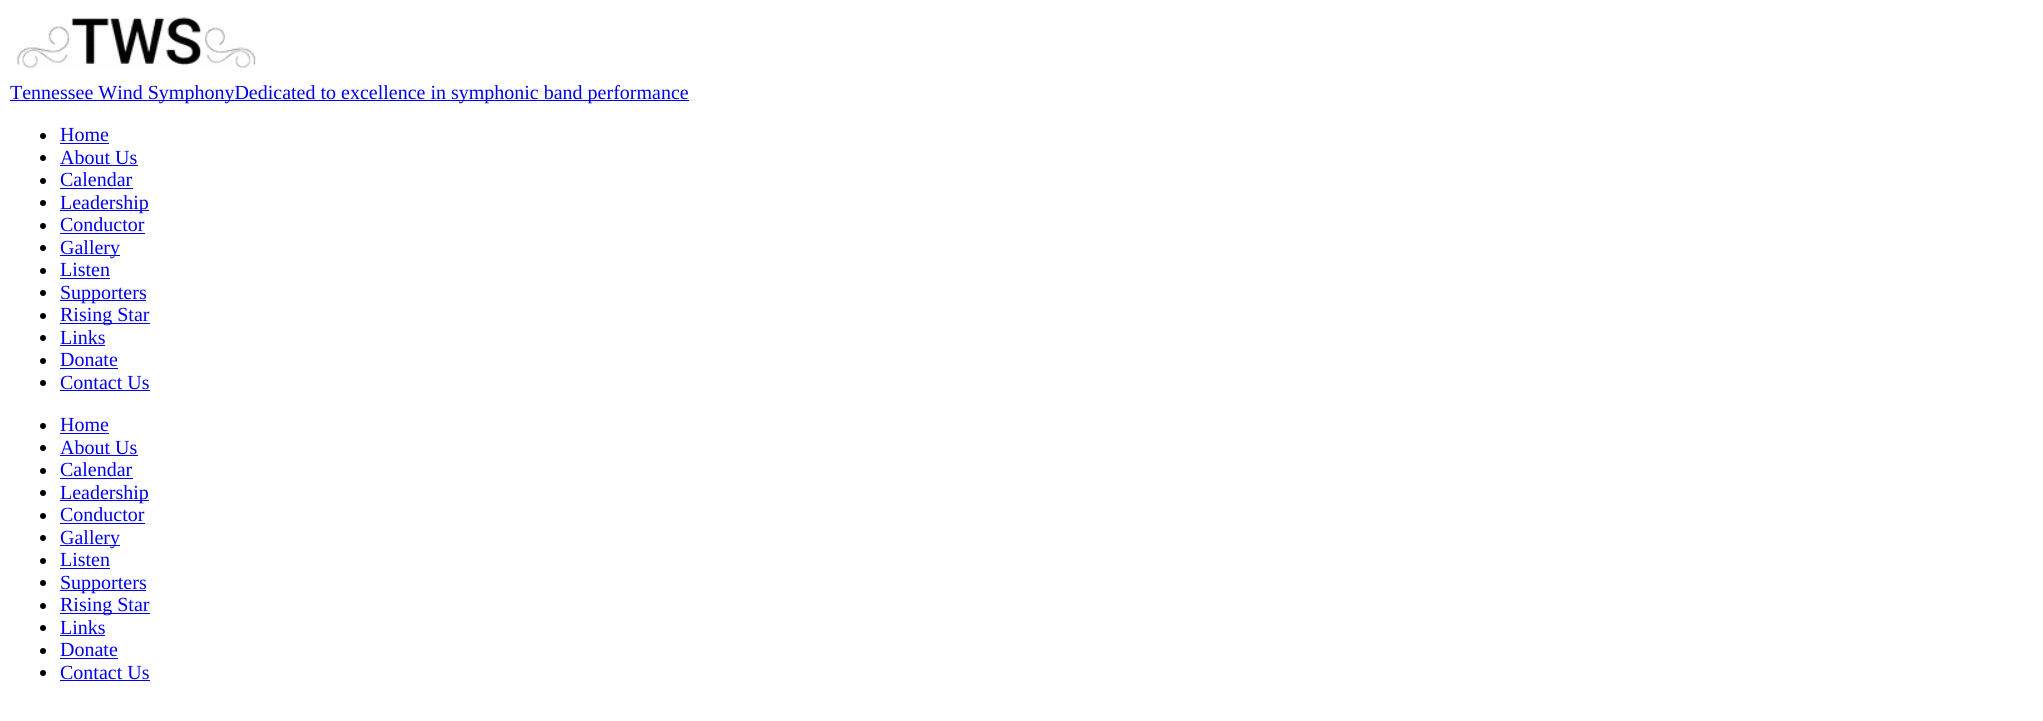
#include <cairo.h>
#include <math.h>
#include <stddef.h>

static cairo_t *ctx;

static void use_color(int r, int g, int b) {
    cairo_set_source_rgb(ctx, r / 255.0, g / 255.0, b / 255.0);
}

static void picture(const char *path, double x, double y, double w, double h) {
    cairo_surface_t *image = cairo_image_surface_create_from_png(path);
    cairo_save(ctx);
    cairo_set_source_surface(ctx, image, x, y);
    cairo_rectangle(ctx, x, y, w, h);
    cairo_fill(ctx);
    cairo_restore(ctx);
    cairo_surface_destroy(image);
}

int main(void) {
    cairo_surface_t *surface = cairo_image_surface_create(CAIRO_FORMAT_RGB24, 2043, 721);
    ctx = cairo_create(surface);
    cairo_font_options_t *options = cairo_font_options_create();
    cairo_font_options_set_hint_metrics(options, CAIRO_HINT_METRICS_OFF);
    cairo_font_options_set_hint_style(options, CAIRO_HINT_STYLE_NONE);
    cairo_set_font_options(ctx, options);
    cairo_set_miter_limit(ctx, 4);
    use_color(255, 255, 255);
    cairo_paint(ctx);
    picture("img1.png", 16, 17, 240, 52);
    use_color(0, 0, 238);
    cairo_rectangle(ctx, 10, 100, 679, 1);
    cairo_fill(ctx);
    cairo_select_font_face(ctx, "Liberation Serif", CAIRO_FONT_SLANT_NORMAL, CAIRO_FONT_WEIGHT_NORMAL);
    cairo_set_font_size(ctx, 20);
    cairo_move_to(ctx, 10, 99);
    cairo_show_text(ctx, "Tennessee Wind SymphonyDedicated to excellence in symphonic band performance");
    use_color(0, 0, 0);
    cairo_new_path(ctx);
    cairo_arc(ctx, 43, 136, 3, 0, 2 * M_PI);
    cairo_fill(ctx);
    use_color(0, 0, 238);
    cairo_move_to(ctx, 60, 141);
    cairo_show_text(ctx, "Home");
    cairo_rectangle(ctx, 60, 143, 49, 1);
    cairo_fill(ctx);
    use_color(0, 0, 0);
    cairo_arc(ctx, 43, 158, 3, 0, 2 * M_PI);
    cairo_fill(ctx);
    use_color(0, 0, 238);
    cairo_move_to(ctx, 60, 164);
    cairo_show_text(ctx, "About Us");
    cairo_rectangle(ctx, 60, 165, 78, 1);
    cairo_fill(ctx);
    use_color(0, 0, 0);
    cairo_arc(ctx, 43, 181, 3, 0, 2 * M_PI);
    cairo_fill(ctx);
    use_color(0, 0, 238);
    cairo_move_to(ctx, 60, 186);
    cairo_show_text(ctx, "Calendar");
    cairo_rectangle(ctx, 60, 188, 73, 1);
    cairo_fill(ctx);
    use_color(0, 0, 0);
    cairo_arc(ctx, 43, 203, 3, 0, 2 * M_PI);
    cairo_fill(ctx);
    use_color(0, 0, 238);
    cairo_rectangle(ctx, 60, 210, 89, 1);
    cairo_fill(ctx);
    cairo_move_to(ctx, 60, 209);
    cairo_show_text(ctx, "Leadership");
    use_color(0, 0, 0);
    cairo_new_path(ctx);
    cairo_arc(ctx, 43, 226, 3, 0, 2 * M_PI);
    cairo_fill(ctx);
    use_color(0, 0, 238);
    cairo_move_to(ctx, 60, 231);
    cairo_show_text(ctx, "Conductor");
    cairo_rectangle(ctx, 60, 233, 85, 1);
    cairo_fill(ctx);
    use_color(0, 0, 0);
    cairo_arc(ctx, 43, 248, 3, 0, 2 * M_PI);
    cairo_fill(ctx);
    use_color(0, 0, 238);
    cairo_rectangle(ctx, 60, 255, 60, 1);
    cairo_fill(ctx);
    cairo_move_to(ctx, 60, 254);
    cairo_show_text(ctx, "Gallery");
    use_color(0, 0, 0);
    cairo_new_path(ctx);
    cairo_arc(ctx, 43, 271, 3, 0, 2 * M_PI);
    cairo_fill(ctx);
    use_color(0, 0, 238);
    cairo_move_to(ctx, 60, 276);
    cairo_show_text(ctx, "Listen");
    cairo_rectangle(ctx, 60, 278, 50, 1);
    cairo_fill(ctx);
    use_color(0, 0, 0);
    cairo_arc(ctx, 43, 293, 3, 0, 2 * M_PI);
    cairo_fill(ctx);
    use_color(0, 0, 238);
    cairo_rectangle(ctx, 60, 300, 86, 1);
    cairo_fill(ctx);
    cairo_move_to(ctx, 60, 299);
    cairo_show_text(ctx, "Supporters");
    use_color(0, 0, 0);
    cairo_new_path(ctx);
    cairo_arc(ctx, 43, 316, 3, 0, 2 * M_PI);
    cairo_fill(ctx);
    use_color(0, 0, 238);
    cairo_rectangle(ctx, 60, 323, 90, 1);
    cairo_fill(ctx);
    cairo_move_to(ctx, 60, 321);
    cairo_show_text(ctx, "Rising Star");
    use_color(0, 0, 0);
    cairo_new_path(ctx);
    cairo_arc(ctx, 43, 338, 3, 0, 2 * M_PI);
    cairo_fill(ctx);
    use_color(0, 0, 238);
    cairo_move_to(ctx, 60, 344);
    cairo_show_text(ctx, "Links");
    cairo_rectangle(ctx, 60, 345, 45, 1);
    cairo_fill(ctx);
    use_color(0, 0, 0);
    cairo_arc(ctx, 43, 361, 3, 0, 2 * M_PI);
    cairo_fill(ctx);
    use_color(0, 0, 238);
    cairo_move_to(ctx, 60, 366);
    cairo_show_text(ctx, "Donate");
    cairo_rectangle(ctx, 60, 368, 58, 1);
    cairo_fill(ctx);
    use_color(0, 0, 0);
    cairo_arc(ctx, 43, 383, 3, 0, 2 * M_PI);
    cairo_fill(ctx);
    use_color(0, 0, 238);
    cairo_move_to(ctx, 60, 389);
    cairo_show_text(ctx, "Contact Us");
    cairo_rectangle(ctx, 60, 390, 90, 1);
    cairo_fill(ctx);
    use_color(0, 0, 0);
    cairo_arc(ctx, 43, 426, 3, 0, 2 * M_PI);
    cairo_fill(ctx);
    use_color(0, 0, 238);
    cairo_move_to(ctx, 60, 431);
    cairo_show_text(ctx, "Home");
    cairo_rectangle(ctx, 60, 433, 49, 1);
    cairo_fill(ctx);
    use_color(0, 0, 0);
    cairo_arc(ctx, 43, 448, 3, 0, 2 * M_PI);
    cairo_fill(ctx);
    use_color(0, 0, 238);
    cairo_move_to(ctx, 60, 454);
    cairo_show_text(ctx, "About Us");
    cairo_rectangle(ctx, 60, 455, 78, 1);
    cairo_fill(ctx);
    use_color(0, 0, 0);
    cairo_arc(ctx, 43, 471, 3, 0, 2 * M_PI);
    cairo_fill(ctx);
    use_color(0, 0, 238);
    cairo_move_to(ctx, 60, 476);
    cairo_show_text(ctx, "Calendar");
    cairo_rectangle(ctx, 60, 478, 73, 1);
    cairo_fill(ctx);
    use_color(0, 0, 0);
    cairo_arc(ctx, 43, 493, 3, 0, 2 * M_PI);
    cairo_fill(ctx);
    use_color(0, 0, 238);
    cairo_rectangle(ctx, 60, 500, 89, 1);
    cairo_fill(ctx);
    cairo_move_to(ctx, 60, 499);
    cairo_show_text(ctx, "Leadership");
    use_color(0, 0, 0);
    cairo_new_path(ctx);
    cairo_arc(ctx, 43, 516, 3, 0, 2 * M_PI);
    cairo_fill(ctx);
    use_color(0, 0, 238);
    cairo_move_to(ctx, 60, 521);
    cairo_show_text(ctx, "Conductor");
    cairo_rectangle(ctx, 60, 523, 85, 1);
    cairo_fill(ctx);
    use_color(0, 0, 0);
    cairo_arc(ctx, 43, 538, 3, 0, 2 * M_PI);
    cairo_fill(ctx);
    use_color(0, 0, 238);
    cairo_rectangle(ctx, 60, 545, 60, 1);
    cairo_fill(ctx);
    cairo_move_to(ctx, 60, 544);
    cairo_show_text(ctx, "Gallery");
    use_color(0, 0, 0);
    cairo_new_path(ctx);
    cairo_arc(ctx, 43, 561, 3, 0, 2 * M_PI);
    cairo_fill(ctx);
    use_color(0, 0, 238);
    cairo_move_to(ctx, 60, 566);
    cairo_show_text(ctx, "Listen");
    cairo_rectangle(ctx, 60, 568, 50, 1);
    cairo_fill(ctx);
    use_color(0, 0, 0);
    cairo_arc(ctx, 43, 583, 3, 0, 2 * M_PI);
    cairo_fill(ctx);
    use_color(0, 0, 238);
    cairo_rectangle(ctx, 60, 590, 86, 1);
    cairo_fill(ctx);
    cairo_move_to(ctx, 60, 589);
    cairo_show_text(ctx, "Supporters");
    use_color(0, 0, 0);
    cairo_new_path(ctx);
    cairo_arc(ctx, 43, 606, 3, 0, 2 * M_PI);
    cairo_fill(ctx);
    use_color(0, 0, 238);
    cairo_rectangle(ctx, 60, 613, 90, 1);
    cairo_fill(ctx);
    cairo_move_to(ctx, 60, 611);
    cairo_show_text(ctx, "Rising Star");
    use_color(0, 0, 0);
    cairo_new_path(ctx);
    cairo_arc(ctx, 43, 628, 3, 0, 2 * M_PI);
    cairo_fill(ctx);
    use_color(0, 0, 238);
    cairo_move_to(ctx, 60, 634);
    cairo_show_text(ctx, "Links");
    cairo_rectangle(ctx, 60, 635, 45, 1);
    cairo_fill(ctx);
    use_color(0, 0, 0);
    cairo_arc(ctx, 43, 651, 3, 0, 2 * M_PI);
    cairo_fill(ctx);
    use_color(0, 0, 238);
    cairo_move_to(ctx, 60, 656);
    cairo_show_text(ctx, "Donate");
    cairo_rectangle(ctx, 60, 658, 58, 1);
    cairo_fill(ctx);
    use_color(0, 0, 0);
    cairo_arc(ctx, 43, 673, 3, 0, 2 * M_PI);
    cairo_fill(ctx);
    use_color(0, 0, 238);
    cairo_move_to(ctx, 60, 679);
    cairo_show_text(ctx, "Contact Us");
    cairo_rectangle(ctx, 60, 680, 90, 1);
    cairo_fill(ctx);
    cairo_surface_write_to_png(surface, "result.png");
    cairo_font_options_destroy(options);
    cairo_destroy(ctx);
    cairo_surface_destroy(surface);
    return 0;
}
